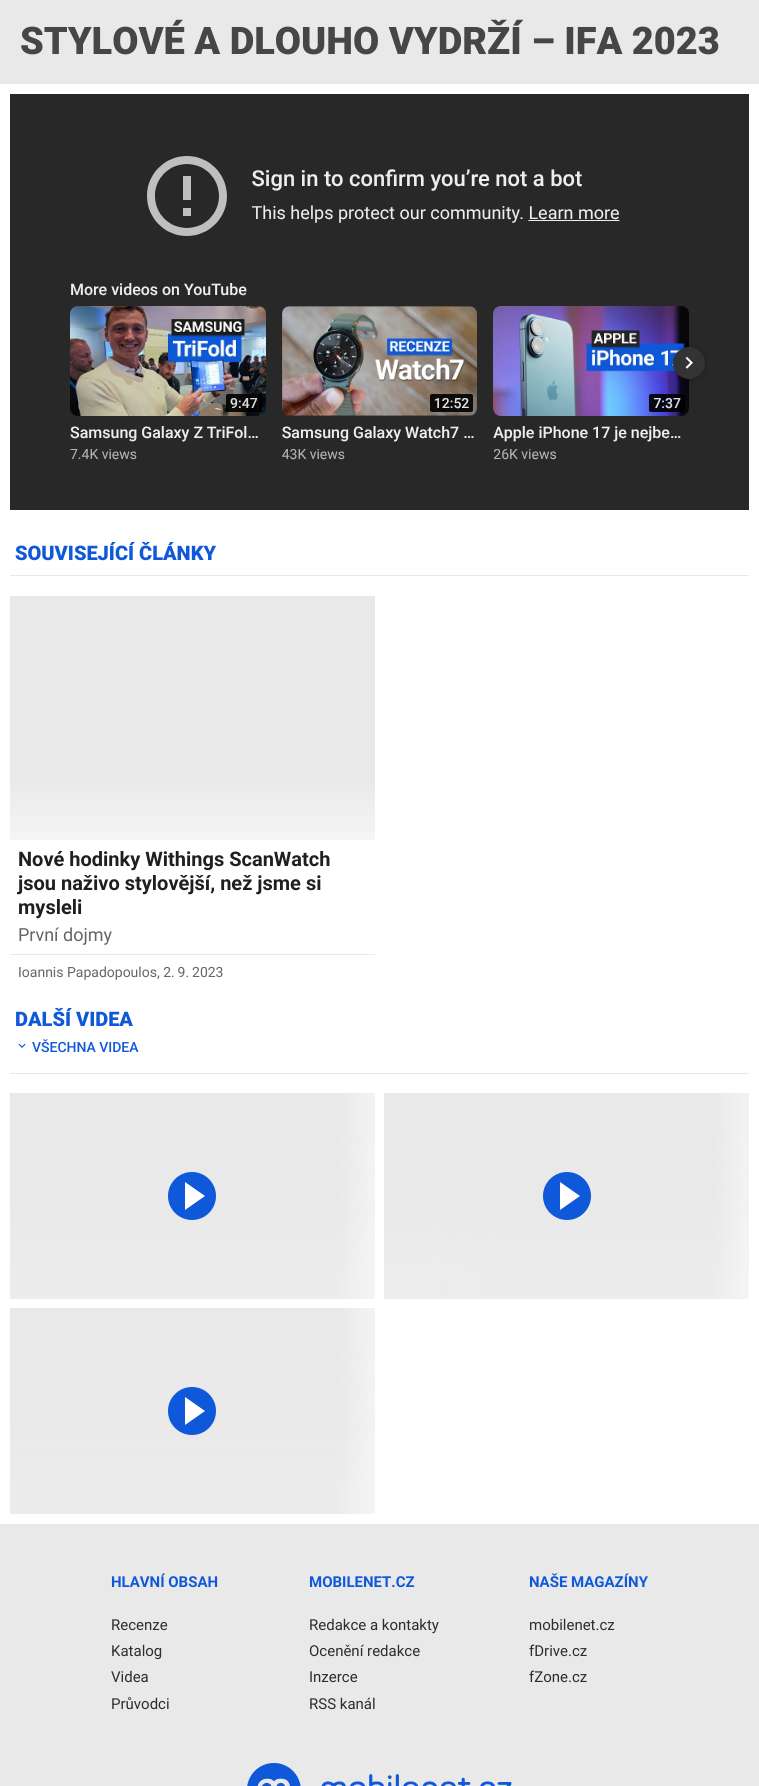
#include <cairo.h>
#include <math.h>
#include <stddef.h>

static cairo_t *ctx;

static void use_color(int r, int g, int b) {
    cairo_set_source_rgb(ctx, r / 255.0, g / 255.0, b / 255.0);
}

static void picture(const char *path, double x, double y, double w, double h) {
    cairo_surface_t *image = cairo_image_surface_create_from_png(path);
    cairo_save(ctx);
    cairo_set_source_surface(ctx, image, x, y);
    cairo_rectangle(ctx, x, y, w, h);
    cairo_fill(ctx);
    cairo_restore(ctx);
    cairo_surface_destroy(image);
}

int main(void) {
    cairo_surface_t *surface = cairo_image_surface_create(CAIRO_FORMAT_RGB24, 759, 1786);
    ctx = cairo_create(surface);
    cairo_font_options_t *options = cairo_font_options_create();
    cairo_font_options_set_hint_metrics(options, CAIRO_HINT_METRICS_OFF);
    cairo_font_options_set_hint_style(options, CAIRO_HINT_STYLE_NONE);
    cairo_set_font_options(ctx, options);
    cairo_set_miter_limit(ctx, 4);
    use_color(233, 233, 233);
    cairo_paint(ctx);
    cairo_select_font_face(ctx, "Roboto Black", CAIRO_FONT_SLANT_NORMAL, CAIRO_FONT_WEIGHT_NORMAL);
    cairo_set_font_size(ctx, 38);
    use_color(70, 70, 70);
    cairo_move_to(ctx, 20, 54);
    cairo_show_text(ctx, "STYLOVÉ A DLOUHO VYDRŽÍ – IFA 2023");
    use_color(255, 255, 255);
    cairo_rectangle(ctx, 0, 84, 759, 1440);
    cairo_fill(ctx);
    picture("img1.png", 10, 94, 739, 416);
    use_color(233, 233, 233);
    cairo_rectangle(ctx, 10, 575, 739, 1);
    cairo_fill(ctx);
    cairo_set_font_size(ctx, 20);
    use_color(15, 88, 217);
    cairo_move_to(ctx, 15, 560);
    cairo_show_text(ctx, "SOUVISEJÍCÍ ČLÁNKY");
    picture("img2.png", 10, 596, 365, 244);
    use_color(233, 233, 233);
    cairo_rectangle(ctx, 10, 954, 365, 1);
    cairo_fill(ctx);
    cairo_select_font_face(ctx, "Roboto", CAIRO_FONT_SLANT_NORMAL, CAIRO_FONT_WEIGHT_BOLD);
    use_color(31, 31, 31);
    cairo_move_to(ctx, 18, 866);
    cairo_show_text(ctx, "Nové hodinky Withings ScanWatch");
    cairo_move_to(ctx, 18, 890);
    cairo_show_text(ctx, "jsou naživo stylovější, než jsme si");
    cairo_move_to(ctx, 18, 914);
    cairo_show_text(ctx, "mysleli");
    cairo_select_font_face(ctx, "Roboto", CAIRO_FONT_SLANT_NORMAL, CAIRO_FONT_WEIGHT_NORMAL);
    cairo_set_font_size(ctx, 18);
    use_color(101, 101, 101);
    cairo_move_to(ctx, 18, 941);
    cairo_show_text(ctx, "První dojmy");
    cairo_set_font_size(ctx, 14);
    cairo_move_to(ctx, 18, 977);
    cairo_show_text(ctx, "Ioannis Papadopoulos, 2. 9. 2023");
    use_color(233, 233, 233);
    cairo_rectangle(ctx, 10, 1073, 739, 1);
    cairo_fill(ctx);
    cairo_select_font_face(ctx, "Roboto Black", CAIRO_FONT_SLANT_NORMAL, CAIRO_FONT_WEIGHT_NORMAL);
    cairo_set_font_size(ctx, 20);
    use_color(15, 88, 217);
    cairo_move_to(ctx, 15, 1026);
    cairo_show_text(ctx, "DALŠÍ VIDEA");
    picture("img3.png", 18, 1043, 8, 5);
    cairo_select_font_face(ctx, "Roboto Medium", CAIRO_FONT_SLANT_NORMAL, CAIRO_FONT_WEIGHT_NORMAL);
    cairo_set_font_size(ctx, 14);
    cairo_move_to(ctx, 32, 1052);
    cairo_show_text(ctx, "VŠECHNA VIDEA");
    picture("img4.png", 10, 1093, 365, 206);
    cairo_arc(ctx, 192, 1196, 24, 0, 2 * M_PI);
    cairo_fill(ctx);
    use_color(255, 255, 255);
    cairo_new_path(ctx);
    cairo_move_to(ctx, 185, 1210);
    cairo_line_to(ctx, 185, 1182);
    cairo_line_to(ctx, 205, 1196);
    cairo_close_path(ctx);
    cairo_fill(ctx);
    picture("img5.png", 384, 1093, 365, 206);
    use_color(15, 88, 217);
    cairo_arc(ctx, 567, 1196, 24, 0, 2 * M_PI);
    cairo_fill(ctx);
    use_color(255, 255, 255);
    cairo_new_path(ctx);
    cairo_move_to(ctx, 560, 1210);
    cairo_line_to(ctx, 560, 1182);
    cairo_line_to(ctx, 580, 1196);
    cairo_close_path(ctx);
    cairo_fill(ctx);
    picture("img6.png", 10, 1308, 365, 206);
    use_color(15, 88, 217);
    cairo_arc(ctx, 192, 1411, 24, 0, 2 * M_PI);
    cairo_fill(ctx);
    use_color(255, 255, 255);
    cairo_new_path(ctx);
    cairo_move_to(ctx, 185, 1425);
    cairo_line_to(ctx, 185, 1397);
    cairo_line_to(ctx, 205, 1411);
    cairo_close_path(ctx);
    cairo_fill(ctx);
    cairo_select_font_face(ctx, "Roboto", CAIRO_FONT_SLANT_NORMAL, CAIRO_FONT_WEIGHT_BOLD);
    cairo_set_font_size(ctx, 15);
    use_color(15, 88, 217);
    cairo_move_to(ctx, 111, 1587);
    cairo_show_text(ctx, "HLAVNÍ OBSAH");
    cairo_select_font_face(ctx, "Roboto", CAIRO_FONT_SLANT_NORMAL, CAIRO_FONT_WEIGHT_NORMAL);
    use_color(45, 45, 45);
    cairo_move_to(ctx, 111, 1630);
    cairo_show_text(ctx, "Recenze");
    cairo_move_to(ctx, 111, 1656);
    cairo_show_text(ctx, "Katalog");
    cairo_move_to(ctx, 111, 1682);
    cairo_show_text(ctx, "Videa");
    cairo_move_to(ctx, 111, 1709);
    cairo_show_text(ctx, "Průvodci");
    cairo_select_font_face(ctx, "Roboto", CAIRO_FONT_SLANT_NORMAL, CAIRO_FONT_WEIGHT_BOLD);
    use_color(15, 88, 217);
    cairo_move_to(ctx, 309, 1587);
    cairo_show_text(ctx, "MOBILENET.CZ");
    cairo_select_font_face(ctx, "Roboto", CAIRO_FONT_SLANT_NORMAL, CAIRO_FONT_WEIGHT_NORMAL);
    use_color(45, 45, 45);
    cairo_move_to(ctx, 309, 1630);
    cairo_show_text(ctx, "Redakce a kontakty");
    cairo_move_to(ctx, 309, 1656);
    cairo_show_text(ctx, "Ocenění redakce");
    cairo_move_to(ctx, 309, 1682);
    cairo_show_text(ctx, "Inzerce");
    cairo_move_to(ctx, 309, 1709);
    cairo_show_text(ctx, "RSS kanál");
    cairo_select_font_face(ctx, "Roboto", CAIRO_FONT_SLANT_NORMAL, CAIRO_FONT_WEIGHT_BOLD);
    use_color(15, 88, 217);
    cairo_move_to(ctx, 529, 1587);
    cairo_show_text(ctx, "NAŠE MAGAZÍNY");
    cairo_select_font_face(ctx, "Roboto", CAIRO_FONT_SLANT_NORMAL, CAIRO_FONT_WEIGHT_NORMAL);
    use_color(45, 45, 45);
    cairo_move_to(ctx, 529, 1630);
    cairo_show_text(ctx, "mobilenet.cz");
    cairo_move_to(ctx, 529, 1656);
    cairo_show_text(ctx, "fDrive.cz");
    cairo_move_to(ctx, 529, 1682);
    cairo_show_text(ctx, "fZone.cz");
    picture("img7.png", 247, 1763, 265, 23);
    cairo_surface_write_to_png(surface, "result.png");
    cairo_font_options_destroy(options);
    cairo_destroy(ctx);
    cairo_surface_destroy(surface);
    return 0;
}
